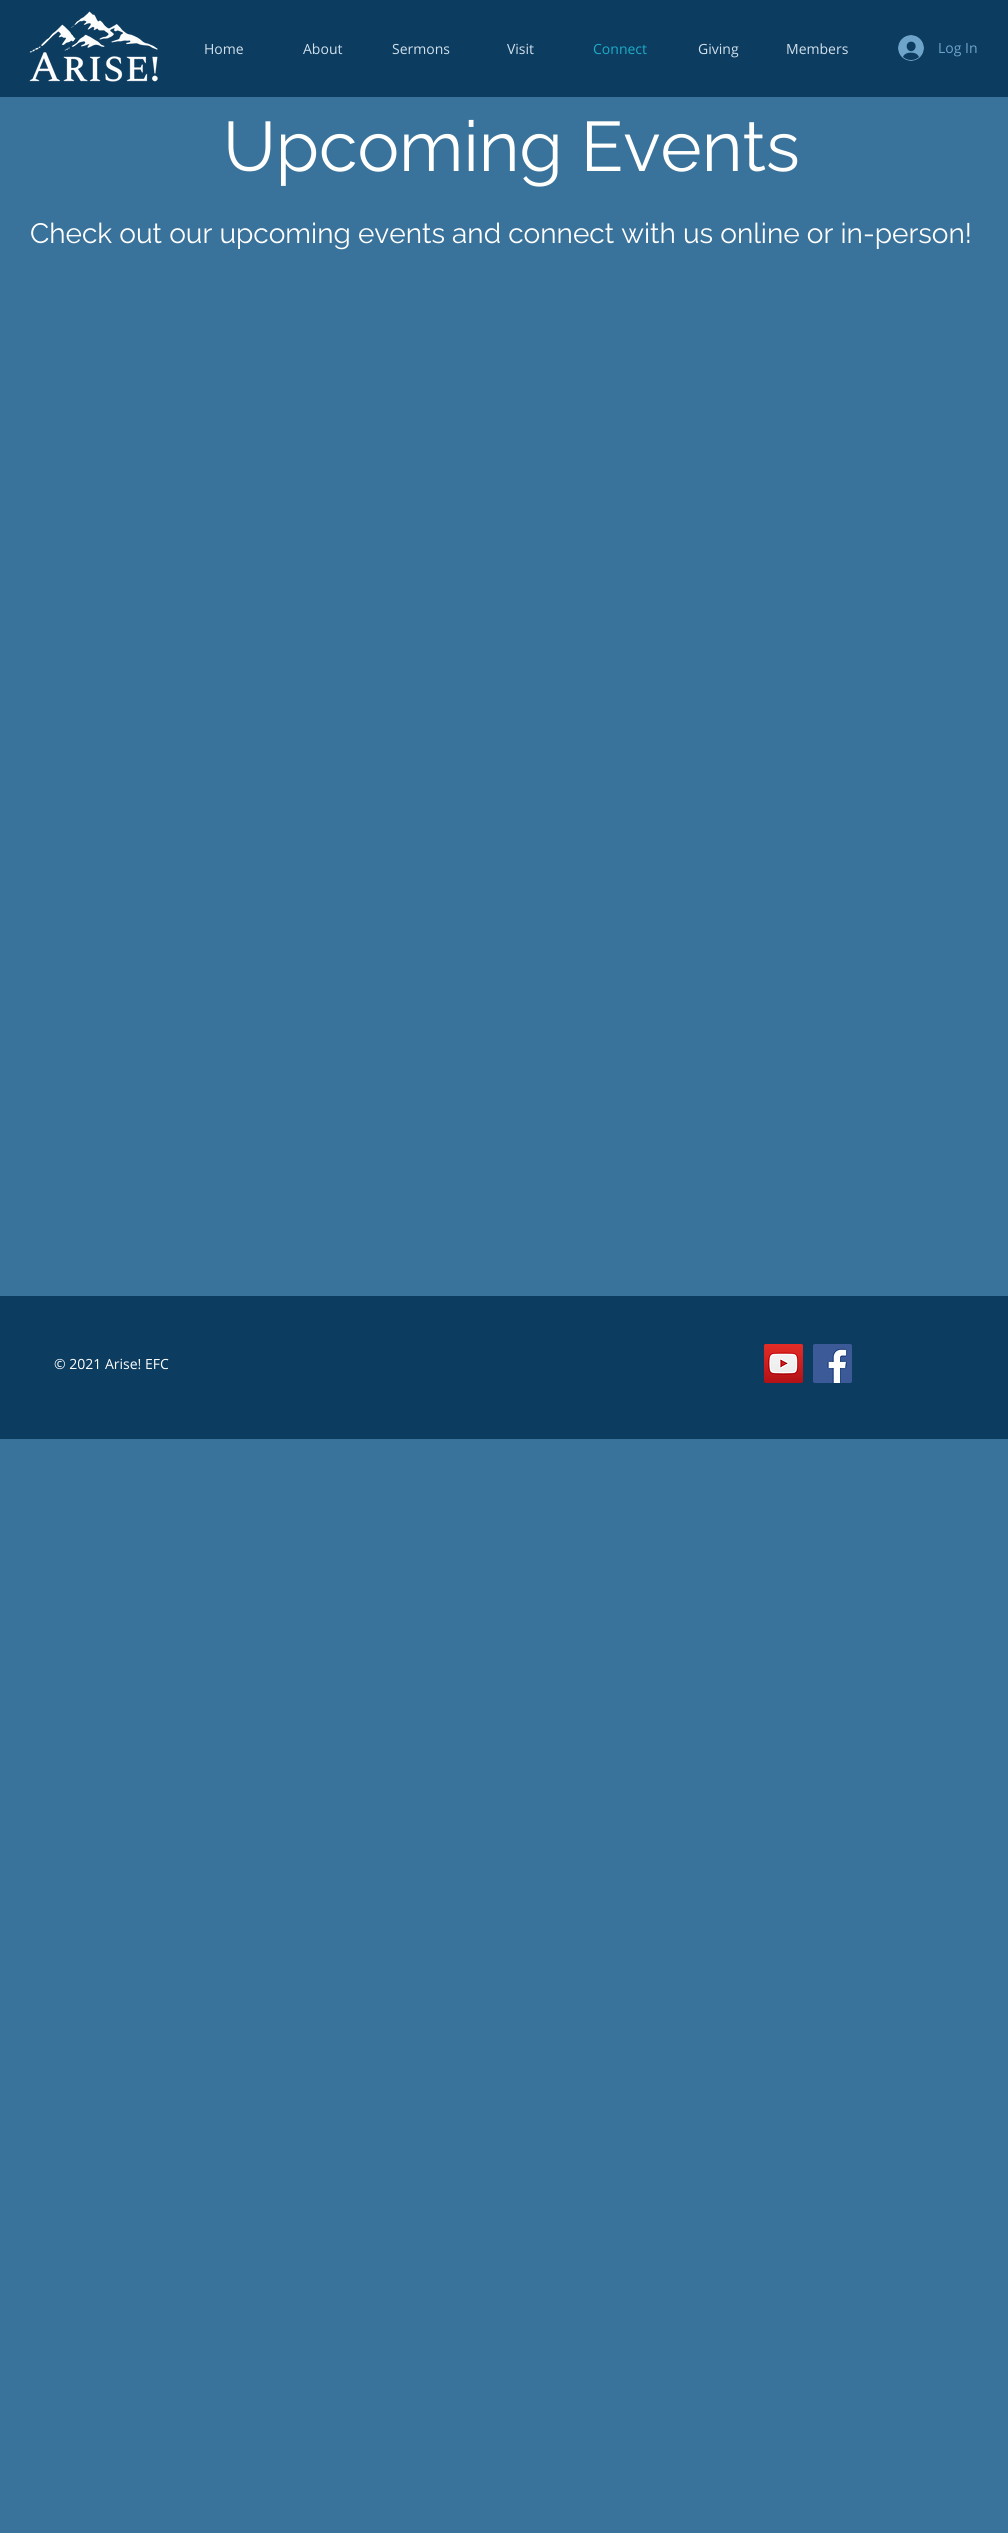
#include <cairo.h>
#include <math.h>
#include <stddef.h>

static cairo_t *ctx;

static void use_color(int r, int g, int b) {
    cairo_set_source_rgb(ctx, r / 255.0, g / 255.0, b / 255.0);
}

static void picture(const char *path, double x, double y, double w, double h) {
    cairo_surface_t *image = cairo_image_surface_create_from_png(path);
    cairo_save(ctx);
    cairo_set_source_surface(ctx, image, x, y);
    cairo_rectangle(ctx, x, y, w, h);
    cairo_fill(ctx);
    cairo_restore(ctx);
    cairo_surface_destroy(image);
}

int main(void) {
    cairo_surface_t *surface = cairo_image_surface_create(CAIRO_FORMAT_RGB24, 1008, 2533);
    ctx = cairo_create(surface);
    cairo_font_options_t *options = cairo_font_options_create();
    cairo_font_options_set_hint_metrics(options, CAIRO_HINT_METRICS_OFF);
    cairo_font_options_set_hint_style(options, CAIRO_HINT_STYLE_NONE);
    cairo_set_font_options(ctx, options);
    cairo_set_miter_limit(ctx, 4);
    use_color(57, 114, 155);
    cairo_paint(ctx);
    use_color(12, 60, 96);
    cairo_rectangle(ctx, 0, 0, 1008, 97);
    cairo_fill(ctx);
    picture("img1.png", 29, 11, 129, 71);
    cairo_select_font_face(ctx, "Open Sans", CAIRO_FONT_SLANT_NORMAL, CAIRO_FONT_WEIGHT_NORMAL);
    cairo_set_font_size(ctx, 14);
    use_color(209, 224, 235);
    cairo_move_to(ctx, 204, 54);
    cairo_show_text(ctx, "Home");
    cairo_move_to(ctx, 303, 54);
    cairo_show_text(ctx, "About");
    cairo_move_to(ctx, 392, 54);
    cairo_show_text(ctx, "Sermons");
    cairo_move_to(ctx, 507, 54);
    cairo_show_text(ctx, "Visit");
    use_color(30, 171, 199);
    cairo_move_to(ctx, 593, 54);
    cairo_show_text(ctx, "Connect");
    use_color(209, 224, 235);
    cairo_move_to(ctx, 698, 54);
    cairo_show_text(ctx, "Giving");
    cairo_move_to(ctx, 786, 54);
    cairo_show_text(ctx, "Members");
    picture("img2.png", 898, 35, 26, 26);
    use_color(110, 164, 202);
    cairo_move_to(ctx, 938, 53);
    cairo_show_text(ctx, "Log In");
    cairo_select_font_face(ctx, "Raleway", CAIRO_FONT_SLANT_NORMAL, CAIRO_FONT_WEIGHT_NORMAL);
    cairo_set_font_size(ctx, 70);
    use_color(255, 255, 254);
    cairo_move_to(ctx, 223, 171);
    cairo_show_text(ctx, "Upcoming Events");
    cairo_set_font_size(ctx, 28);
    cairo_move_to(ctx, 30, 243);
    cairo_show_text(ctx, "Check out our upcoming events and connect with us online or in-person!");
    use_color(12, 60, 96);
    cairo_rectangle(ctx, 0, 1296, 1008, 143);
    cairo_fill(ctx);
    cairo_select_font_face(ctx, "Open Sans", CAIRO_FONT_SLANT_NORMAL, CAIRO_FONT_WEIGHT_NORMAL);
    cairo_set_font_size(ctx, 14);
    use_color(255, 255, 254);
    cairo_move_to(ctx, 54, 1369);
    cairo_show_text(ctx, "© 2021 Arise! EFC");
    picture("img3.png", 764, 1344, 39, 39);
    picture("img4.png", 813, 1344, 39, 39);
    cairo_surface_write_to_png(surface, "result.png");
    cairo_font_options_destroy(options);
    cairo_destroy(ctx);
    cairo_surface_destroy(surface);
    return 0;
}
